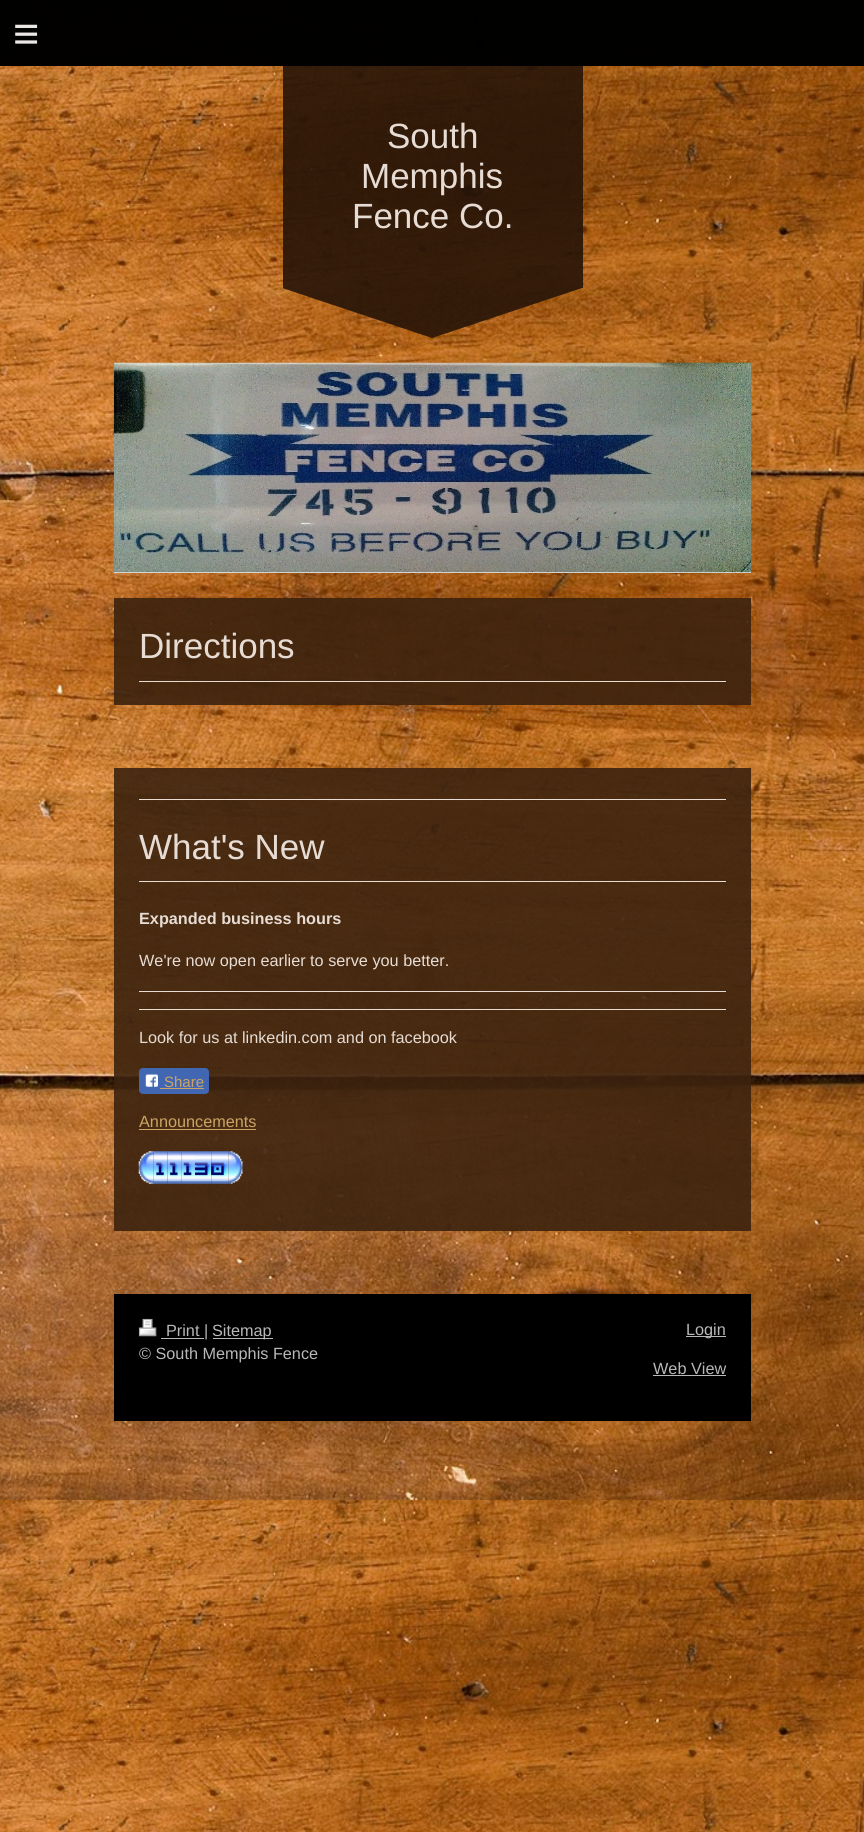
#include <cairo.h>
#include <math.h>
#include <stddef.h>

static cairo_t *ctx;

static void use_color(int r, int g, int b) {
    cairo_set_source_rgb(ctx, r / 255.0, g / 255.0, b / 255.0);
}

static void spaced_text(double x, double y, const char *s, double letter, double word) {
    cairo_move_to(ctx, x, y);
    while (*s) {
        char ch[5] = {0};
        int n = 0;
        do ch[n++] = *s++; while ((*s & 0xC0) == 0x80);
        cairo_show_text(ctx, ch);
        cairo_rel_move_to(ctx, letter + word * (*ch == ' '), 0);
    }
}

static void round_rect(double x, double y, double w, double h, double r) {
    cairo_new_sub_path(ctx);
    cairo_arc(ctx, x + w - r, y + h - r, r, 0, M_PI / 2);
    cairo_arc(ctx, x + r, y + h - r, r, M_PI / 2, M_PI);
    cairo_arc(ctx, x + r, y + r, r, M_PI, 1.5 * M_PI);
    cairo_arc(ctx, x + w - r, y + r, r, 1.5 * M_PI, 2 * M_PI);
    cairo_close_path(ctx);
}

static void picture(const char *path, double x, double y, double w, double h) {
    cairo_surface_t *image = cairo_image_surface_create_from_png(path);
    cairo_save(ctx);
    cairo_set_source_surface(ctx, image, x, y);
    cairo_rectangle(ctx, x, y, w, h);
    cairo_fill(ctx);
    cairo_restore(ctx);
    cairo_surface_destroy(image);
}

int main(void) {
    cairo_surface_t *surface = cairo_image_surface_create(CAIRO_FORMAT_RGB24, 864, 1832);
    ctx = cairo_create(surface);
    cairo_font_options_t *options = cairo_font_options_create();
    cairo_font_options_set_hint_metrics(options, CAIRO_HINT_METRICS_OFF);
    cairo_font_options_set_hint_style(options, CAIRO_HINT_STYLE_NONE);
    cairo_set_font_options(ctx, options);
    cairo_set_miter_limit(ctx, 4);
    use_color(255, 255, 255);
    cairo_paint(ctx);
    picture("img1.png", 0, 0, 864, 1832);
    cairo_set_source_rgba(ctx, 0, 0, 0, 0.99);
    cairo_rectangle(ctx, 0, 0, 864, 66);
    cairo_fill(ctx);
    cairo_select_font_face(ctx, "Liberation Sans", CAIRO_FONT_SLANT_NORMAL, CAIRO_FONT_WEIGHT_NORMAL);
    cairo_set_font_size(ctx, 45);
    use_color(234, 231, 229);
    spaced_text(13, 49, "≡", 13, 0);
    cairo_set_source_rgba(ctx, 0.153, 0.082, 0.031, 0.9);
    cairo_rectangle(ctx, 283, 66, 300, 222);
    cairo_fill(ctx);
    cairo_set_font_size(ctx, 35);
    use_color(231, 220, 212);
    cairo_move_to(ctx, 387, 148);
    cairo_show_text(ctx, "South");
    cairo_move_to(ctx, 361, 188);
    cairo_show_text(ctx, "Memphis");
    cairo_move_to(ctx, 352, 228);
    cairo_show_text(ctx, "Fence Co.");
    cairo_set_source_rgba(ctx, 0.153, 0.082, 0.031, 0.9);
    cairo_new_path(ctx);
    cairo_move_to(ctx, 282, 288);
    cairo_line_to(ctx, 582, 288);
    cairo_line_to(ctx, 432, 338);
    cairo_close_path(ctx);
    cairo_fill(ctx);
    use_color(238, 238, 238);
    cairo_rectangle(ctx, 114, 572, 637, 1);
    cairo_fill(ctx);
    picture("img2.png", 113, 362, 639, 211);
    cairo_set_source_rgba(ctx, 0.235, 0.137, 0.059, 0.9);
    cairo_rectangle(ctx, 114, 598, 637, 107);
    cairo_fill(ctx);
    use_color(231, 220, 212);
    cairo_rectangle(ctx, 139, 681, 587, 1);
    cairo_fill(ctx);
    cairo_move_to(ctx, 139, 658);
    cairo_show_text(ctx, "Directions");
    cairo_set_source_rgba(ctx, 0.235, 0.137, 0.059, 0.9);
    cairo_rectangle(ctx, 114, 768, 637, 463);
    cairo_fill(ctx);
    use_color(231, 220, 212);
    cairo_rectangle(ctx, 139, 799, 587, 1);
    cairo_fill(ctx);
    cairo_rectangle(ctx, 139, 881, 587, 1);
    cairo_fill(ctx);
    cairo_move_to(ctx, 139, 859);
    cairo_show_text(ctx, "What's New");
    cairo_select_font_face(ctx, "Liberation Sans", CAIRO_FONT_SLANT_NORMAL, CAIRO_FONT_WEIGHT_BOLD);
    cairo_set_font_size(ctx, 16.25);
    cairo_move_to(ctx, 139, 924);
    cairo_show_text(ctx, "Expanded business hours");
    cairo_select_font_face(ctx, "Liberation Sans", CAIRO_FONT_SLANT_NORMAL, CAIRO_FONT_WEIGHT_NORMAL);
    cairo_move_to(ctx, 139, 966);
    cairo_show_text(ctx, "We're now open earlier to serve you better.");
    cairo_rectangle(ctx, 139, 991, 587, 1);
    cairo_fill(ctx);
    cairo_rectangle(ctx, 139, 1009, 587, 1);
    cairo_fill(ctx);
    cairo_move_to(ctx, 139, 1043);
    cairo_show_text(ctx, "Look for us at linkedin.com and on facebook");
    use_color(66, 103, 178);
    round_rect(139, 1068, 70, 26, 4);
    cairo_fill(ctx);
    picture("img3.png", 145, 1074, 13, 13);
    cairo_set_font_size(ctx, 15);
    use_color(203, 164, 101);
    cairo_move_to(ctx, 164, 1087);
    cairo_show_text(ctx, "Share");
    cairo_rectangle(ctx, 160, 1088, 44, 1);
    cairo_fill(ctx);
    cairo_set_font_size(ctx, 16.25);
    cairo_move_to(ctx, 139, 1127);
    cairo_show_text(ctx, "Announcements");
    cairo_rectangle(ctx, 139, 1129, 117, 1);
    cairo_fill(ctx);
    picture("img4.png", 138, 1151, 16, 33);
    picture("img5.png", 153, 1151, 15, 33);
    picture("img6.png", 167, 1151, 15, 33);
    picture("img7.png", 181, 1151, 14, 33);
    picture("img8.png", 195, 1151, 17, 33);
    picture("img9.png", 211, 1151, 18, 33);
    picture("img10.png", 228, 1151, 15, 33);
    use_color(0, 0, 0);
    cairo_rectangle(ctx, 114, 1294, 637, 127);
    cairo_fill(ctx);
    picture("img11.png", 138, 1318, 19, 19);
    use_color(184, 184, 184);
    cairo_rectangle(ctx, 161, 1338, 43, 1);
    cairo_fill(ctx);
    cairo_move_to(ctx, 166, 1336);
    cairo_show_text(ctx, "Print |");
    cairo_rectangle(ctx, 213, 1338, 60, 1);
    cairo_fill(ctx);
    cairo_move_to(ctx, 212, 1336);
    cairo_show_text(ctx, "Sitemap");
    cairo_move_to(ctx, 139, 1359);
    cairo_show_text(ctx, "© South Memphis Fence");
    cairo_rectangle(ctx, 686, 1336, 40, 1);
    cairo_fill(ctx);
    cairo_move_to(ctx, 686, 1335);
    cairo_show_text(ctx, "Login");
    cairo_move_to(ctx, 653, 1374);
    cairo_show_text(ctx, "Web View");
    cairo_rectangle(ctx, 653, 1375, 73, 1);
    cairo_fill(ctx);
    cairo_surface_write_to_png(surface, "result.png");
    cairo_font_options_destroy(options);
    cairo_destroy(ctx);
    cairo_surface_destroy(surface);
    return 0;
}
